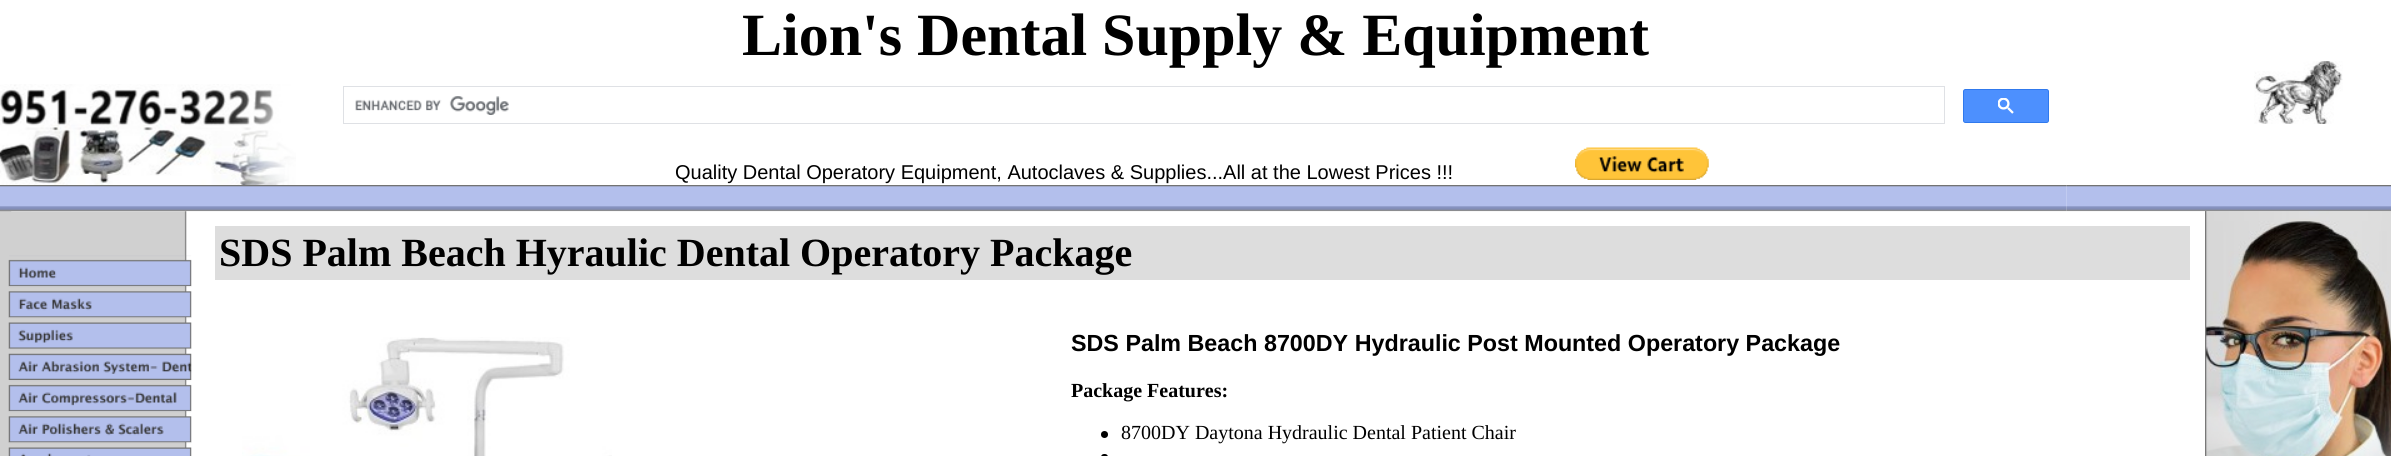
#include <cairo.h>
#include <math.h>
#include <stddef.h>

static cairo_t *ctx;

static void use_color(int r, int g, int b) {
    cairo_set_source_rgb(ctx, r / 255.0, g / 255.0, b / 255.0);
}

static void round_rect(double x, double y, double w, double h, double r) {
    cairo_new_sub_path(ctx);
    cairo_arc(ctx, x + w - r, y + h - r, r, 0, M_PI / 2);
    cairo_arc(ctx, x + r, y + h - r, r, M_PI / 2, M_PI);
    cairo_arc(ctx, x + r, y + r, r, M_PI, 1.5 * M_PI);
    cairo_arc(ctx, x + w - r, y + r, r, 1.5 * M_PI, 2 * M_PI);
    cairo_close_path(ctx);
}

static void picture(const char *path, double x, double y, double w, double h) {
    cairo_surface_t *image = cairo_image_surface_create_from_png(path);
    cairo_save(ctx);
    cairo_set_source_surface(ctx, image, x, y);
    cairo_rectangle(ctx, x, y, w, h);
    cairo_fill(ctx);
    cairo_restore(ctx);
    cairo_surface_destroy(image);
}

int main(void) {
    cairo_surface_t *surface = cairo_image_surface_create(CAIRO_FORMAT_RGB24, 2391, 456);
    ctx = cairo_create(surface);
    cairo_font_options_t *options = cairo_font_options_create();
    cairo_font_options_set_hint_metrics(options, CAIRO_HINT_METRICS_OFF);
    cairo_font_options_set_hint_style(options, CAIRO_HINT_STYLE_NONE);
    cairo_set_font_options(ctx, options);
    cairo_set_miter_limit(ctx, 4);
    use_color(255, 255, 255);
    cairo_paint(ctx);
    picture("img1.png", 0, 84, 296, 101);
    cairo_select_font_face(ctx, "Liberation Serif", CAIRO_FONT_SLANT_NORMAL, CAIRO_FONT_WEIGHT_BOLD);
    cairo_set_font_size(ctx, 60);
    use_color(0, 0, 0);
    cairo_move_to(ctx, 742, 55);
    cairo_show_text(ctx, "Lion's Dental Supply & Equipment");
    cairo_rectangle(ctx, 343.5, 86.5, 1601, 37);
    use_color(223, 225, 229);
    cairo_set_line_width(ctx, 1);
    cairo_stroke(ctx);
    picture("img2.png", 355, 96, 154, 19);
    use_color(77, 144, 254);
    round_rect(1963.5, 89.5, 85, 33, 2);
    cairo_fill_preserve(ctx);
    use_color(48, 121, 237);
    cairo_stroke(ctx);
    picture("img3.png", 1998, 98, 16, 16);
    cairo_select_font_face(ctx, "Liberation Sans", CAIRO_FONT_SLANT_NORMAL, CAIRO_FONT_WEIGHT_NORMAL);
    cairo_set_font_size(ctx, 20);
    use_color(0, 0, 0);
    cairo_move_to(ctx, 675, 179);
    cairo_show_text(ctx, "Quality Dental Operatory Equipment, Autoclaves & Supplies...All at the Lowest Prices !!!");
    picture("img4.png", 1575, 147, 134, 33);
    picture("img5.png", 2254, 61, 89, 63);
    picture("img6.png", 0, 185, 325, 27);
    picture("img10.png", 0, 211, 200, 245);
    picture("img7.png", 0, 211, 12, 1);
    picture("img8.png", 325, 185, 1742, 26);
    picture("img9.png", 2066, 185, 325, 27);
    picture("img11.png", 8, 255, 184, 32);
    picture("img12.png", 8, 286, 184, 32);
    picture("img13.png", 8, 317, 184, 32);
    picture("img14.png", 8, 348, 184, 32);
    picture("img15.png", 8, 380, 184, 32);
    picture("img16.png", 8, 411, 184, 32);
    picture("img17.png", 8, 442, 184, 14);
    use_color(248, 248, 248);
    cairo_rectangle(ctx, 200, 211, 2005, 1);
    cairo_fill(ctx);
    use_color(221, 221, 221);
    cairo_rectangle(ctx, 215, 226, 1975, 54);
    cairo_fill(ctx);
    cairo_select_font_face(ctx, "Liberation Serif", CAIRO_FONT_SLANT_NORMAL, CAIRO_FONT_WEIGHT_BOLD);
    cairo_set_font_size(ctx, 40);
    use_color(0, 0, 0);
    cairo_move_to(ctx, 219, 266);
    cairo_show_text(ctx, "SDS Palm Beach Hyraulic Dental Operatory Package");
    picture("img18.png", 242, 337, 370, 119);
    cairo_select_font_face(ctx, "Liberation Sans", CAIRO_FONT_SLANT_NORMAL, CAIRO_FONT_WEIGHT_BOLD);
    cairo_set_font_size(ctx, 23.3);
    cairo_move_to(ctx, 1071, 351);
    cairo_show_text(ctx, "SDS Palm Beach 8700DY Hydraulic Post Mounted Operatory Package");
    cairo_select_font_face(ctx, "Liberation Serif", CAIRO_FONT_SLANT_NORMAL, CAIRO_FONT_WEIGHT_BOLD);
    cairo_set_font_size(ctx, 20);
    cairo_move_to(ctx, 1071, 397);
    cairo_show_text(ctx, "Package Features:");
    cairo_new_path(ctx);
    cairo_arc(ctx, 1104.5, 434.5, 3.5, 0, 2 * M_PI);
    cairo_fill(ctx);
    cairo_select_font_face(ctx, "Liberation Serif", CAIRO_FONT_SLANT_NORMAL, CAIRO_FONT_WEIGHT_NORMAL);
    cairo_move_to(ctx, 1121, 439);
    cairo_show_text(ctx, "8700DY Daytona Hydraulic Dental Patient Chair");
    round_rect(1101, 454, 7, 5, 3);
    cairo_fill(ctx);
    picture("img19.png", 2205, 211, 186, 1);
    picture("img20.png", 2205, 211, 186, 245);
    cairo_surface_write_to_png(surface, "result.png");
    cairo_font_options_destroy(options);
    cairo_destroy(ctx);
    cairo_surface_destroy(surface);
    return 0;
}
